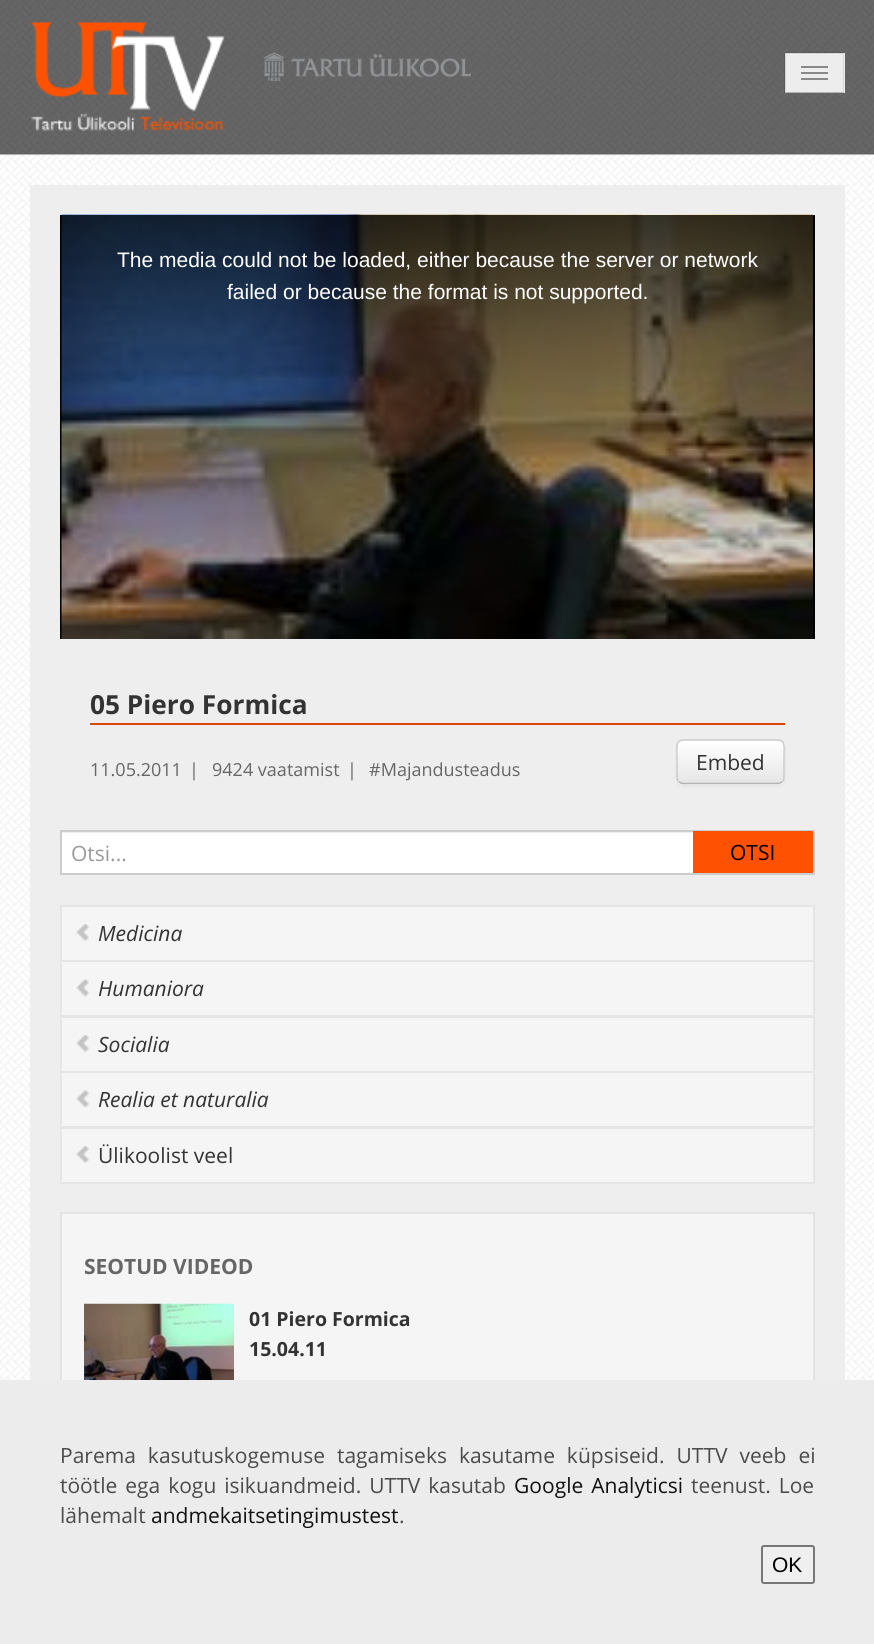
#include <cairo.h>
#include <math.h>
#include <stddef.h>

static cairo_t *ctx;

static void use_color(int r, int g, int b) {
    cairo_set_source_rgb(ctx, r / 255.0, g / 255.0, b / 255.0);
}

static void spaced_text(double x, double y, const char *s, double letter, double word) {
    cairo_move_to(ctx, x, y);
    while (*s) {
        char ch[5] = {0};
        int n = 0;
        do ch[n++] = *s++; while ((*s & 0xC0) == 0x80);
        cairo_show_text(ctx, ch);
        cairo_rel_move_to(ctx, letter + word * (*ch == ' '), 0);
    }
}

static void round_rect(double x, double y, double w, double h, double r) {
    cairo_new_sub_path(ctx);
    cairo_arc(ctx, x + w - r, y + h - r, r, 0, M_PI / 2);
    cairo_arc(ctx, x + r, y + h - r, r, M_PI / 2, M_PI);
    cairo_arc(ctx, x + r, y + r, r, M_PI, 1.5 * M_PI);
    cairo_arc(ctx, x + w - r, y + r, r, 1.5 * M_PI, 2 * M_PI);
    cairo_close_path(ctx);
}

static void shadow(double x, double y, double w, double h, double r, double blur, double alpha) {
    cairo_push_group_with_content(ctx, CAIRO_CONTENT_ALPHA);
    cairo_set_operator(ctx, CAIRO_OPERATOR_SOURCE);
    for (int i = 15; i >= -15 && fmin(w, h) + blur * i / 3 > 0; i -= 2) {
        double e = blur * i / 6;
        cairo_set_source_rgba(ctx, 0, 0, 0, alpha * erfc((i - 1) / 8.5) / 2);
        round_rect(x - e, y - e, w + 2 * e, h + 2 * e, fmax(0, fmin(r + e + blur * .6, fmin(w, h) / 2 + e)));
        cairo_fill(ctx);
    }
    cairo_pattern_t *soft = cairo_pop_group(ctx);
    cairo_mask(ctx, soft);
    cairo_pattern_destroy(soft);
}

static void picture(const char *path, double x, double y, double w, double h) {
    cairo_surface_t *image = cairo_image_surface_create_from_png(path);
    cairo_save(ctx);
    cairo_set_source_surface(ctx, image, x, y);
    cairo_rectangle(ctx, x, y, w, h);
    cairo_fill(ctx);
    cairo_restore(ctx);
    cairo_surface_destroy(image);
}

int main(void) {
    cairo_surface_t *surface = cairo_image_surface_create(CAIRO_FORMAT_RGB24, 874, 1644);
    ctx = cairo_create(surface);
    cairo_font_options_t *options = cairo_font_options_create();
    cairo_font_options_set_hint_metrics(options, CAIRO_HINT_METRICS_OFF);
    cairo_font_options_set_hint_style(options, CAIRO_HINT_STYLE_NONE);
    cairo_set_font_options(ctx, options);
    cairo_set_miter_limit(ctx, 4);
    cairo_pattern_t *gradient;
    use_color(255, 255, 255);
    cairo_paint(ctx);
    picture("img1.png", 0, 0, 874, 155);
    picture("img2.png", 31, 22, 194, 109);
    picture("img3.png", 264, 52, 207, 29);
    use_color(237, 237, 237);
    cairo_rectangle(ctx, 785, 53, 60, 40);
    cairo_fill(ctx);
    cairo_set_source_rgba(ctx, 0, 0, 0, 0.1);
    cairo_new_path(ctx);
    cairo_move_to(ctx, 784, 52);
    cairo_line_to(ctx, 844, 52);
    cairo_line_to(ctx, 843, 54);
    cairo_line_to(ctx, 786, 54);
    cairo_close_path(ctx);
    cairo_fill(ctx);
    cairo_new_path(ctx);
    cairo_move_to(ctx, 844, 52);
    cairo_line_to(ctx, 844, 93);
    cairo_line_to(ctx, 843, 92);
    cairo_line_to(ctx, 843, 54);
    cairo_close_path(ctx);
    cairo_fill(ctx);
    cairo_set_source_rgba(ctx, 0, 0, 0, 0.25);
    cairo_new_path(ctx);
    cairo_move_to(ctx, 844, 93);
    cairo_line_to(ctx, 784, 93);
    cairo_line_to(ctx, 786, 92);
    cairo_line_to(ctx, 843, 92);
    cairo_close_path(ctx);
    cairo_fill(ctx);
    cairo_set_source_rgba(ctx, 0, 0, 0, 0.1);
    cairo_new_path(ctx);
    cairo_move_to(ctx, 784, 93);
    cairo_line_to(ctx, 784, 52);
    cairo_line_to(ctx, 786, 54);
    cairo_line_to(ctx, 786, 92);
    cairo_close_path(ctx);
    cairo_fill(ctx);
    use_color(136, 136, 136);
    cairo_rectangle(ctx, 801, 66, 27, 2);
    cairo_fill(ctx);
    cairo_rectangle(ctx, 801, 72, 27, 2);
    cairo_fill(ctx);
    cairo_rectangle(ctx, 801, 78, 27, 2);
    cairo_fill(ctx);
    picture("img4.png", 0, 154, 874, 1226);
    use_color(238, 238, 238);
    cairo_rectangle(ctx, 30, 185, 815, 1195);
    cairo_fill(ctx);
    use_color(0, 0, 0);
    cairo_rectangle(ctx, 60, 215, 755, 424);
    cairo_fill(ctx);
    picture("img5.png", 61, 214, 752, 425);
    gradient = cairo_pattern_create_linear(437, 214, 437, 639);
    cairo_pattern_add_color_stop_rgba(gradient, 0, 0, 0, 0, 0.8);
    cairo_pattern_add_color_stop_rgba(gradient, 1, 0, 0, 0, 0);
    cairo_set_source(ctx, gradient);
    cairo_pattern_destroy(gradient);
    cairo_rectangle(ctx, 61, 215, 752, 408);
    cairo_fill(ctx);
    cairo_select_font_face(ctx, "Liberation Sans", CAIRO_FONT_SLANT_NORMAL, CAIRO_FONT_WEIGHT_NORMAL);
    cairo_set_font_size(ctx, 21);
    use_color(255, 255, 255);
    cairo_move_to(ctx, 117, 267);
    cairo_show_text(ctx, "The media could not be loaded, either because the server or network");
    cairo_move_to(ctx, 227, 299);
    cairo_show_text(ctx, "failed or because the format is not supported.");
    use_color(221, 72, 0);
    cairo_rectangle(ctx, 90, 723, 695, 2);
    cairo_fill(ctx);
    cairo_select_font_face(ctx, "Open Sans", CAIRO_FONT_SLANT_NORMAL, CAIRO_FONT_WEIGHT_BOLD);
    cairo_set_font_size(ctx, 26.25);
    use_color(51, 51, 51);
    cairo_move_to(ctx, 90, 714);
    cairo_show_text(ctx, "05 Piero Formica");
    cairo_select_font_face(ctx, "Open Sans", CAIRO_FONT_SLANT_NORMAL, CAIRO_FONT_WEIGHT_NORMAL);
    cairo_set_font_size(ctx, 18);
    use_color(102, 102, 102);
    cairo_move_to(ctx, 90, 776);
    cairo_show_text(ctx, "11.05.2011");
    cairo_move_to(ctx, 189, 776);
    cairo_show_text(ctx, "|");
    cairo_move_to(ctx, 212, 776);
    cairo_show_text(ctx, "9424 vaatamist");
    cairo_move_to(ctx, 347, 776);
    cairo_show_text(ctx, "|");
    cairo_move_to(ctx, 369, 776);
    cairo_show_text(ctx, "#Majandusteadus");
    use_color(0, 0, 0);
    shadow(677, 741, 108, 45, 6, 1.5, 0.05);
    use_color(245, 245, 245);
    round_rect(677, 740, 108, 45, 6);
    cairo_fill(ctx);
    cairo_save(ctx);
    round_rect(677, 740, 108, 45, 6);
    cairo_clip(ctx);
    gradient = cairo_pattern_create_linear(731, 741, 731, 783);
    cairo_pattern_add_color_stop_rgba(gradient, 0, 1, 1, 1, 1);
    cairo_pattern_add_color_stop_rgba(gradient, 1, 0.902, 0.902, 0.902, 1);
    cairo_set_source(ctx, gradient);
    cairo_pattern_destroy(gradient);
    cairo_rectangle(ctx, 677, 741, 108, 42);
    cairo_fill(ctx);
    cairo_restore(ctx);
    cairo_new_path(ctx);
    cairo_move_to(ctx, 782, 782);
    cairo_line_to(ctx, 779, 783.5);
    cairo_line_to(ctx, 682, 783.5);
    cairo_line_to(ctx, 679, 782);
    use_color(179, 179, 179);
    cairo_set_line_width(ctx, 1.5);
    cairo_stroke(ctx);
    cairo_new_path(ctx);
    cairo_move_to(ctx, 679, 782);
    cairo_curve_to(ctx, 676.5, 780, 677, 776, 677, 773);
    cairo_line_to(ctx, 677, 762);
    cairo_curve_to(ctx, 677, 737.5, 673.5, 740, 698.5, 740);
    cairo_line_to(ctx, 762.5, 740);
    cairo_curve_to(ctx, 787.5, 740, 784, 737.5, 784, 762);
    cairo_line_to(ctx, 784, 773);
    cairo_curve_to(ctx, 784, 776, 784.5, 780, 782, 782);
    use_color(204, 204, 204);
    cairo_stroke(ctx);
    cairo_set_font_size(ctx, 21);
    use_color(51, 51, 51);
    cairo_move_to(ctx, 696, 770);
    cairo_show_text(ctx, "Embed");
    use_color(255, 255, 255);
    cairo_rectangle(ctx, 62, 833, 631, 40);
    cairo_fill(ctx);
    cairo_rectangle(ctx, 61, 831, 753, 43);
    use_color(204, 204, 204);
    cairo_set_line_width(ctx, 2);
    cairo_stroke(ctx);
    use_color(153, 153, 153);
    cairo_move_to(ctx, 71, 861);
    cairo_show_text(ctx, "Otsi...");
    use_color(254, 81, 2);
    cairo_rectangle(ctx, 693, 831, 120, 42);
    cairo_fill(ctx);
    use_color(0, 0, 0);
    cairo_move_to(ctx, 730, 860);
    cairo_show_text(ctx, "OTSI");
    use_color(245, 245, 245);
    cairo_rectangle(ctx, 62, 907, 751, 275);
    cairo_fill(ctx);
    cairo_rectangle(ctx, 61, 906, 753, 55);
    use_color(229, 229, 229);
    cairo_stroke(ctx);
    picture("img6.png", 76, 924, 13, 17);
    cairo_select_font_face(ctx, "Open Sans", CAIRO_FONT_SLANT_ITALIC, CAIRO_FONT_WEIGHT_NORMAL);
    use_color(51, 51, 51);
    cairo_move_to(ctx, 98, 941);
    cairo_show_text(ctx, "Medicina");
    cairo_rectangle(ctx, 61, 961, 753, 55);
    use_color(229, 229, 229);
    cairo_stroke(ctx);
    picture("img7.png", 76, 979, 13, 18);
    use_color(51, 51, 51);
    cairo_move_to(ctx, 98, 996);
    cairo_show_text(ctx, "Humaniora");
    cairo_rectangle(ctx, 61, 1017, 753, 55);
    use_color(229, 229, 229);
    cairo_stroke(ctx);
    picture("img6.png", 76, 1035, 13, 17);
    use_color(51, 51, 51);
    cairo_move_to(ctx, 98, 1052);
    cairo_show_text(ctx, "Socialia");
    cairo_rectangle(ctx, 61, 1072, 753, 55);
    use_color(229, 229, 229);
    cairo_stroke(ctx);
    picture("img7.png", 76, 1090, 13, 18);
    use_color(51, 51, 51);
    cairo_move_to(ctx, 98, 1107);
    cairo_show_text(ctx, "Realia et naturalia");
    cairo_rectangle(ctx, 61, 1128, 753, 55);
    use_color(229, 229, 229);
    cairo_stroke(ctx);
    picture("img6.png", 76, 1146, 13, 17);
    cairo_select_font_face(ctx, "Open Sans", CAIRO_FONT_SLANT_NORMAL, CAIRO_FONT_WEIGHT_NORMAL);
    use_color(51, 51, 51);
    cairo_move_to(ctx, 98, 1163);
    cairo_show_text(ctx, "Ülikoolist veel");
    use_color(245, 245, 245);
    cairo_rectangle(ctx, 62, 1214, 751, 166);
    cairo_fill(ctx);
    cairo_rectangle(ctx, 61, 1213, 753, 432);
    use_color(227, 227, 227);
    cairo_stroke(ctx);
    cairo_select_font_face(ctx, "Open Sans", CAIRO_FONT_SLANT_NORMAL, CAIRO_FONT_WEIGHT_BOLD);
    use_color(102, 102, 102);
    cairo_move_to(ctx, 84, 1274);
    cairo_show_text(ctx, "SEOTUD VIDEOD");
    picture("img8.png", 84, 1303, 150, 77);
    cairo_set_font_size(ctx, 19.5);
    use_color(51, 51, 51);
    cairo_move_to(ctx, 249, 1326);
    cairo_show_text(ctx, "01 Piero Formica");
    cairo_move_to(ctx, 249, 1356);
    cairo_show_text(ctx, "15.04.11");
    use_color(236, 236, 236);
    cairo_rectangle(ctx, 0, 1380, 874, 264);
    cairo_fill(ctx);
    cairo_select_font_face(ctx, "Open Sans", CAIRO_FONT_SLANT_NORMAL, CAIRO_FONT_WEIGHT_NORMAL);
    cairo_set_font_size(ctx, 21);
    use_color(75, 75, 75);
    spaced_text(60, 1463, "Parema kasutuskogemuse tagamiseks kasutame küpsiseid. UTTV veeb ei", 0, 6.5);
    spaced_text(60, 1493, "töötle ega kogu isikuandmeid. UTTV kasutab", 0, 2.5);
    use_color(17, 17, 17);
    spaced_text(514, 1493, "Google Analyticsi", 0, 2.5);
    use_color(75, 75, 75);
    spaced_text(691, 1493, "teenust. Loe", 0, 2.5);
    cairo_move_to(ctx, 60, 1523);
    cairo_show_text(ctx, "lähemalt");
    use_color(17, 17, 17);
    cairo_move_to(ctx, 151, 1523);
    cairo_show_text(ctx, "andmekaitsetingimustest");
    use_color(75, 75, 75);
    cairo_move_to(ctx, 399, 1523);
    cairo_show_text(ctx, ".");
    use_color(239, 239, 239);
    round_rect(762, 1546, 52, 37, 2);
    cairo_fill_preserve(ctx);
    use_color(118, 118, 118);
    cairo_stroke(ctx);
    cairo_select_font_face(ctx, "Liberation Sans", CAIRO_FONT_SLANT_NORMAL, CAIRO_FONT_WEIGHT_NORMAL);
    use_color(0, 0, 0);
    cairo_move_to(ctx, 772, 1572);
    cairo_show_text(ctx, "OK");
    cairo_surface_write_to_png(surface, "result.png");
    cairo_font_options_destroy(options);
    cairo_destroy(ctx);
    cairo_surface_destroy(surface);
    return 0;
}
